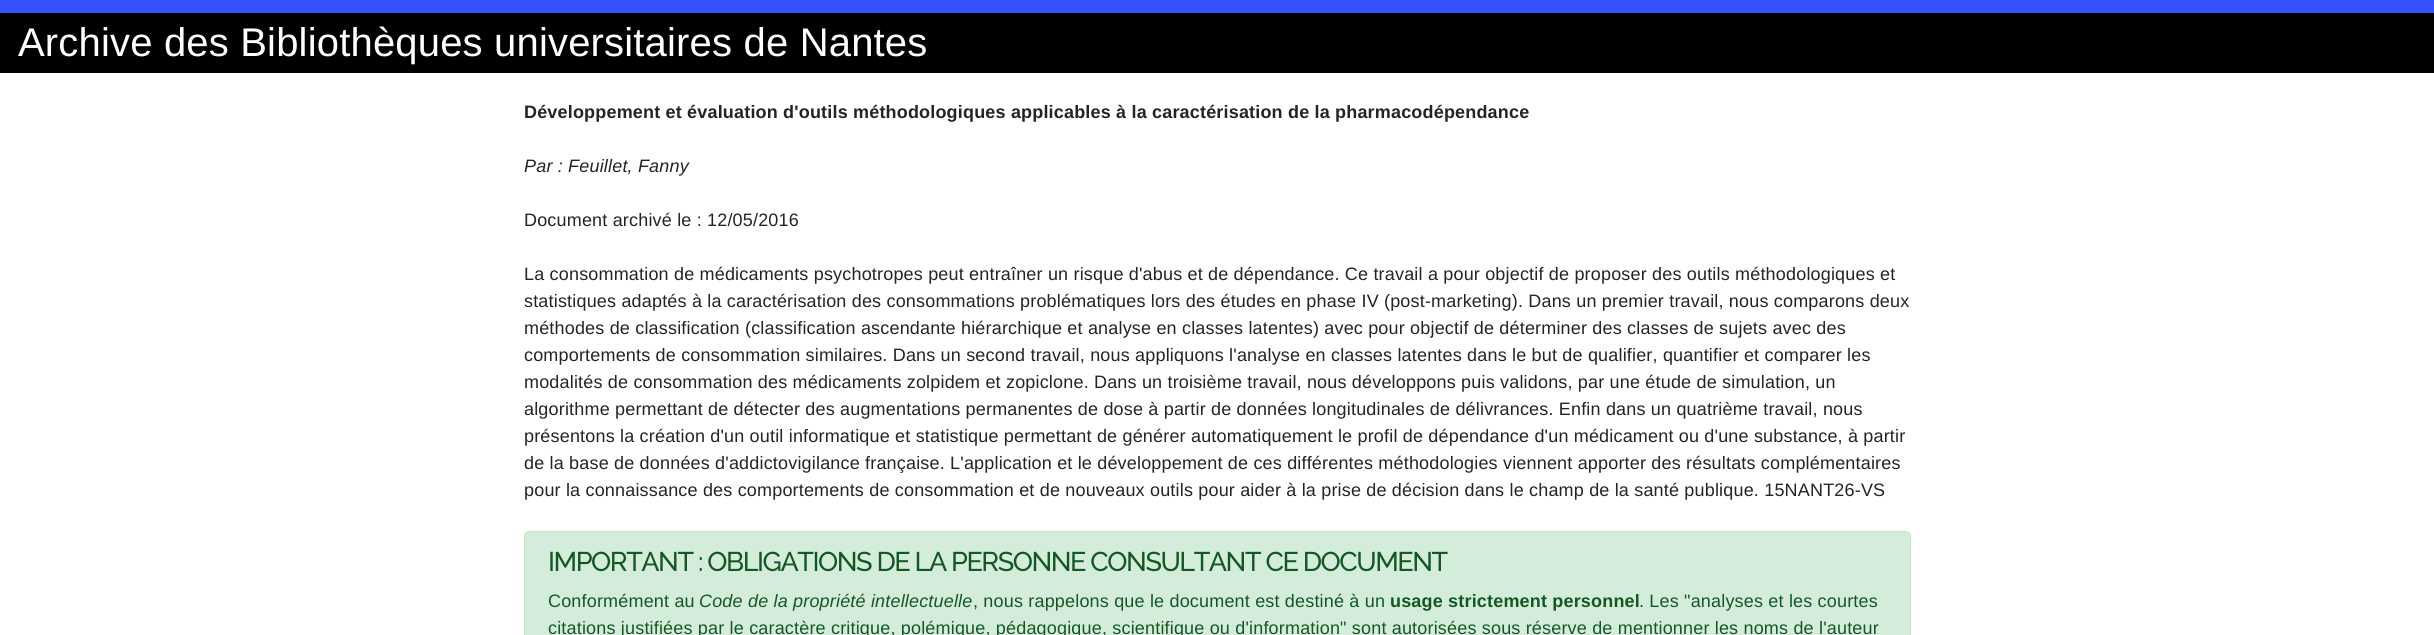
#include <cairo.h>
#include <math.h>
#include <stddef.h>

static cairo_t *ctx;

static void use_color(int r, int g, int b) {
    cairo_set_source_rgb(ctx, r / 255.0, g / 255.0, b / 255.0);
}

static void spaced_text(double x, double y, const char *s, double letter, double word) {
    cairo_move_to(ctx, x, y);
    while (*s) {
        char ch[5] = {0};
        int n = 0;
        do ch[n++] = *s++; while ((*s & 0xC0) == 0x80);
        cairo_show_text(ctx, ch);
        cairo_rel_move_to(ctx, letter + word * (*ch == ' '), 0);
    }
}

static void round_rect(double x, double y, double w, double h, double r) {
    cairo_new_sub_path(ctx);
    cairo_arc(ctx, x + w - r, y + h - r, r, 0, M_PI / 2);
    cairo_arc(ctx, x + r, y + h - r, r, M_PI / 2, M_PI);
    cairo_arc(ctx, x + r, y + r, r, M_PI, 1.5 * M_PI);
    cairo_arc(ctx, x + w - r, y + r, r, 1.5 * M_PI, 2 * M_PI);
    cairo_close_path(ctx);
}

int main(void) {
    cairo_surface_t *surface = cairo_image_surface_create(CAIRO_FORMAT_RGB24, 2434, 635);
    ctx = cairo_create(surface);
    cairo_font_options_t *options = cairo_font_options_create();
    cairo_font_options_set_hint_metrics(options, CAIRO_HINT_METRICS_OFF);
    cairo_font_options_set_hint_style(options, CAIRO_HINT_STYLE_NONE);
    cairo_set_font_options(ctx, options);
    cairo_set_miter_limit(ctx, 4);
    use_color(255, 255, 255);
    cairo_paint(ctx);
    use_color(52, 82, 255);
    cairo_rectangle(ctx, 0, 0, 2434, 13);
    cairo_fill(ctx);
    use_color(0, 0, 0);
    cairo_rectangle(ctx, 0, 13, 2434, 60);
    cairo_fill(ctx);
    cairo_select_font_face(ctx, "Liberation Sans", CAIRO_FONT_SLANT_NORMAL, CAIRO_FONT_WEIGHT_NORMAL);
    cairo_set_font_size(ctx, 40);
    use_color(255, 255, 255);
    spaced_text(18, 56, "Archive des Bibliothèques universitaires de Nantes", 0.18, 0);
    cairo_select_font_face(ctx, "Liberation Sans", CAIRO_FONT_SLANT_NORMAL, CAIRO_FONT_WEIGHT_BOLD);
    cairo_set_font_size(ctx, 18);
    use_color(33, 37, 41);
    spaced_text(524, 118, "Développement et évaluation d'outils méthodologiques applicables à la caractérisation de la pharmacodépendance", 0.18, 0);
    cairo_select_font_face(ctx, "Liberation Sans", CAIRO_FONT_SLANT_ITALIC, CAIRO_FONT_WEIGHT_NORMAL);
    spaced_text(524, 172, "Par : Feuillet, Fanny", 0.18, 0);
    cairo_select_font_face(ctx, "Liberation Sans", CAIRO_FONT_SLANT_NORMAL, CAIRO_FONT_WEIGHT_NORMAL);
    spaced_text(524, 226, "Document archivé le : 12/05/2016", 0.18, 0);
    spaced_text(524, 280, "La consommation de médicaments psychotropes peut entraîner un risque d'abus et de dépendance. Ce travail a pour objectif de proposer des outils méthodologiques et", 0.18, 0);
    spaced_text(524, 307, "statistiques adaptés à la caractérisation des consommations problématiques lors des études en phase IV (post-marketing). Dans un premier travail, nous comparons deux", 0.18, 0);
    spaced_text(524, 334, "méthodes de classification (classification ascendante hiérarchique et analyse en classes latentes) avec pour objectif de déterminer des classes de sujets avec des", 0.18, 0);
    spaced_text(524, 361, "comportements de consommation similaires. Dans un second travail, nous appliquons l'analyse en classes latentes dans le but de qualifier, quantifier et comparer les", 0.18, 0);
    spaced_text(524, 388, "modalités de consommation des médicaments zolpidem et zopiclone. Dans un troisième travail, nous développons puis validons, par une étude de simulation, un", 0.18, 0);
    spaced_text(524, 415, "algorithme permettant de détecter des augmentations permanentes de dose à partir de données longitudinales de délivrances. Enfin dans un quatrième travail, nous", 0.18, 0);
    spaced_text(524, 442, "présentons la création d'un outil informatique et statistique permettant de générer automatiquement le profil de dépendance d'un médicament ou d'une substance, à partir", 0.18, 0);
    spaced_text(524, 469, "de la base de données d'addictovigilance française. L'application et le développement de ces différentes méthodologies viennent apporter des résultats complémentaires", 0.18, 0);
    spaced_text(524, 496, "pour la connaissance des comportements de consommation et de nouveaux outils pour aider à la prise de décision dans le champ de la santé publique. 15NANT26-VS", 0.18, 0);
    use_color(212, 237, 218);
    round_rect(524.5, 531.5, 1386, 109, 4.5);
    cairo_fill_preserve(ctx);
    use_color(195, 230, 203);
    cairo_set_line_width(ctx, 1);
    cairo_stroke(ctx);
    cairo_select_font_face(ctx, "Raleway Medium", CAIRO_FONT_SLANT_NORMAL, CAIRO_FONT_WEIGHT_NORMAL);
    cairo_set_font_size(ctx, 27);
    use_color(21, 87, 36);
    spaced_text(548, 571, "IMPORTANT : OBLIGATIONS DE LA PERSONNE CONSULTANT CE DOCUMENT", -1.45, 0);
    cairo_select_font_face(ctx, "Liberation Sans", CAIRO_FONT_SLANT_NORMAL, CAIRO_FONT_WEIGHT_NORMAL);
    cairo_set_font_size(ctx, 18);
    spaced_text(548, 607, "Conformément au", 0.18, 0);
    cairo_select_font_face(ctx, "Liberation Sans", CAIRO_FONT_SLANT_ITALIC, CAIRO_FONT_WEIGHT_NORMAL);
    spaced_text(699, 607, "Code de la propriété intellectuelle", 0.18, 0);
    cairo_select_font_face(ctx, "Liberation Sans", CAIRO_FONT_SLANT_NORMAL, CAIRO_FONT_WEIGHT_NORMAL);
    spaced_text(973, 607, ", nous rappelons que le document est destiné à un", 0.18, 0);
    cairo_select_font_face(ctx, "Liberation Sans", CAIRO_FONT_SLANT_NORMAL, CAIRO_FONT_WEIGHT_BOLD);
    spaced_text(1390, 607, "usage strictement personnel", 0.18, 0);
    cairo_select_font_face(ctx, "Liberation Sans", CAIRO_FONT_SLANT_NORMAL, CAIRO_FONT_WEIGHT_NORMAL);
    spaced_text(1639, 607, ". Les \"analyses et les courtes", 0.18, 0);
    spaced_text(548, 634, "citations justifiées par le caractère critique, polémique, pédagogique, scientifique ou d'information\" sont autorisées sous réserve de mentionner les noms de l'auteur", 0.18, 0);
    cairo_surface_write_to_png(surface, "result.png");
    cairo_font_options_destroy(options);
    cairo_destroy(ctx);
    cairo_surface_destroy(surface);
    return 0;
}
